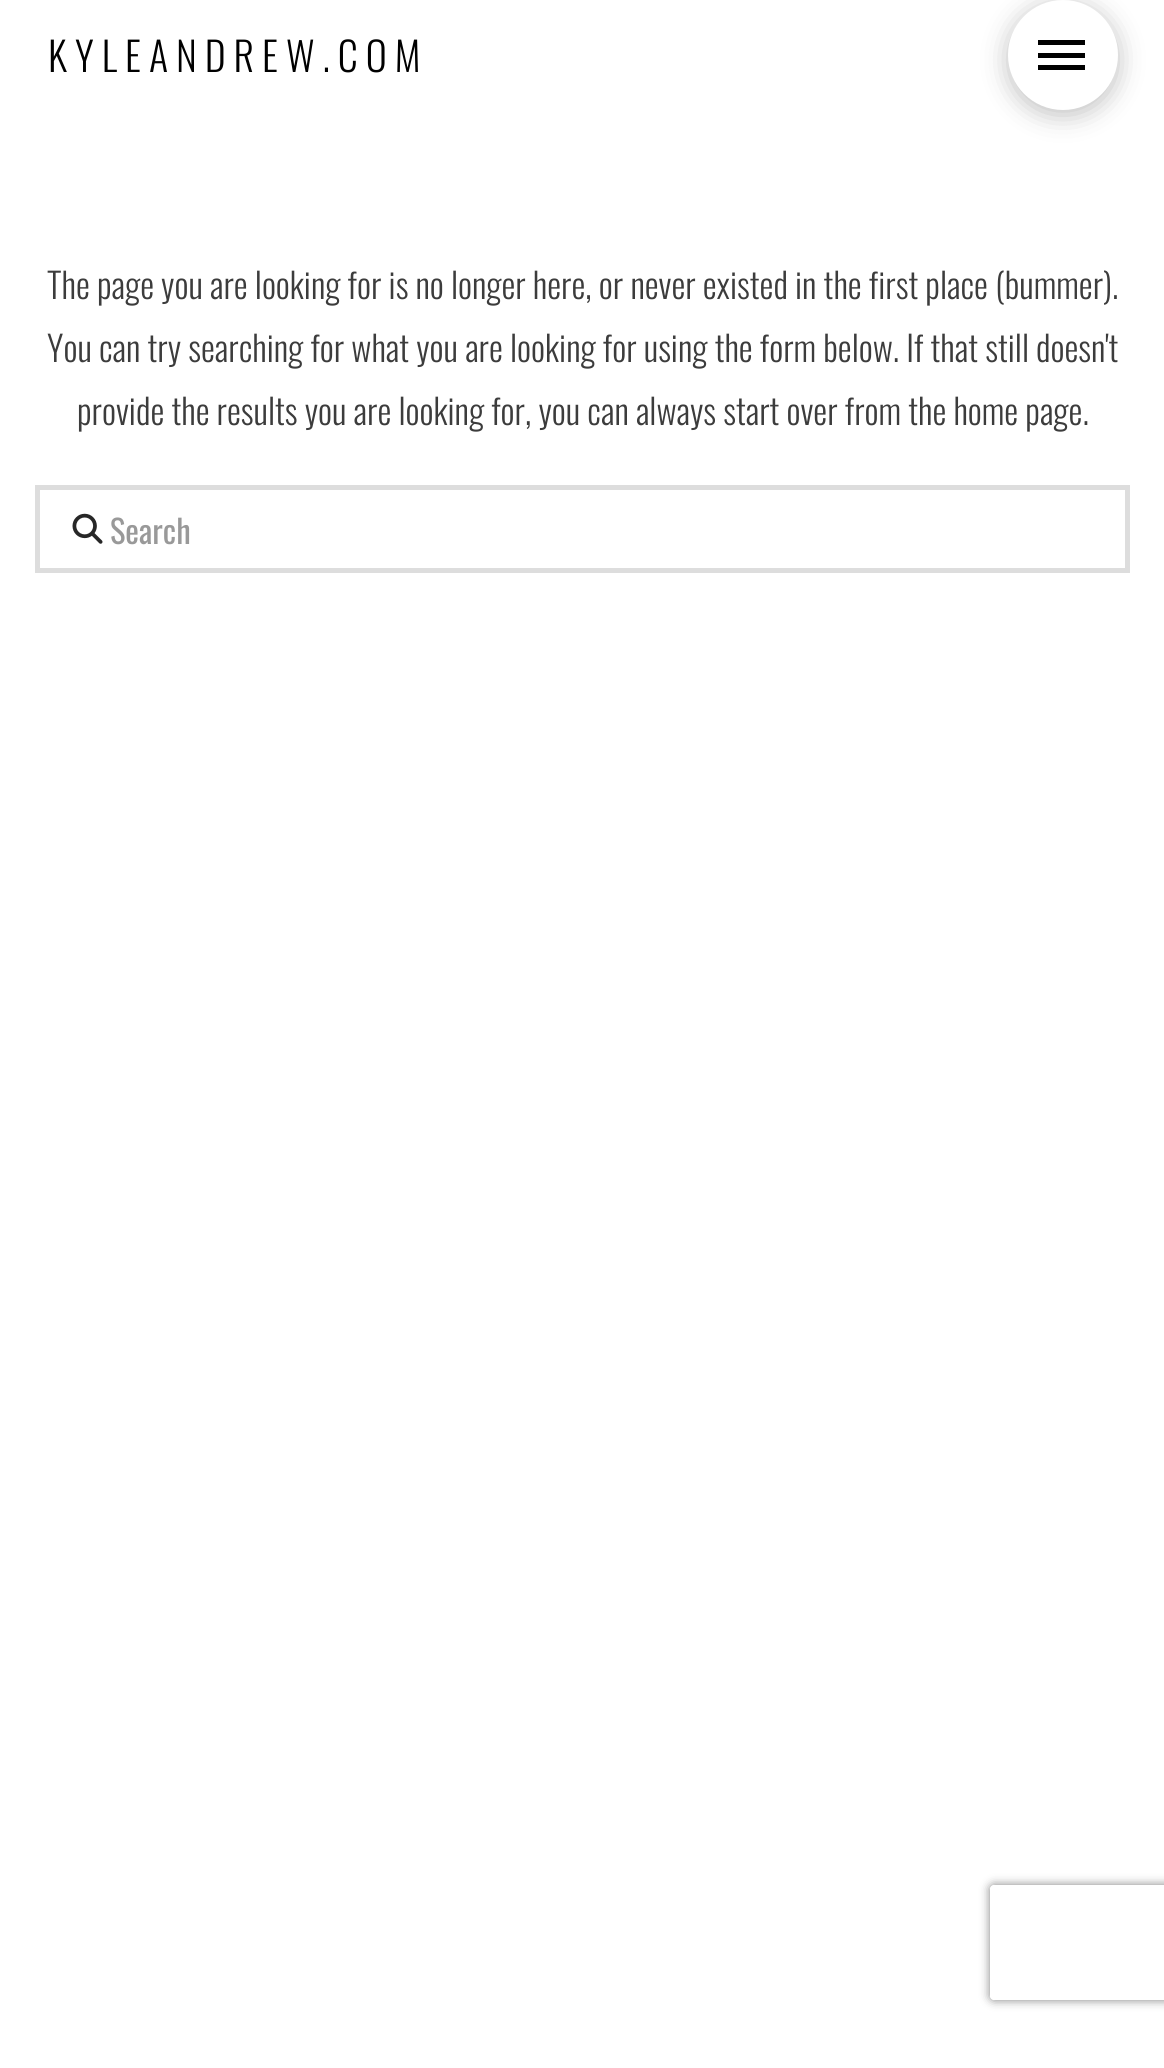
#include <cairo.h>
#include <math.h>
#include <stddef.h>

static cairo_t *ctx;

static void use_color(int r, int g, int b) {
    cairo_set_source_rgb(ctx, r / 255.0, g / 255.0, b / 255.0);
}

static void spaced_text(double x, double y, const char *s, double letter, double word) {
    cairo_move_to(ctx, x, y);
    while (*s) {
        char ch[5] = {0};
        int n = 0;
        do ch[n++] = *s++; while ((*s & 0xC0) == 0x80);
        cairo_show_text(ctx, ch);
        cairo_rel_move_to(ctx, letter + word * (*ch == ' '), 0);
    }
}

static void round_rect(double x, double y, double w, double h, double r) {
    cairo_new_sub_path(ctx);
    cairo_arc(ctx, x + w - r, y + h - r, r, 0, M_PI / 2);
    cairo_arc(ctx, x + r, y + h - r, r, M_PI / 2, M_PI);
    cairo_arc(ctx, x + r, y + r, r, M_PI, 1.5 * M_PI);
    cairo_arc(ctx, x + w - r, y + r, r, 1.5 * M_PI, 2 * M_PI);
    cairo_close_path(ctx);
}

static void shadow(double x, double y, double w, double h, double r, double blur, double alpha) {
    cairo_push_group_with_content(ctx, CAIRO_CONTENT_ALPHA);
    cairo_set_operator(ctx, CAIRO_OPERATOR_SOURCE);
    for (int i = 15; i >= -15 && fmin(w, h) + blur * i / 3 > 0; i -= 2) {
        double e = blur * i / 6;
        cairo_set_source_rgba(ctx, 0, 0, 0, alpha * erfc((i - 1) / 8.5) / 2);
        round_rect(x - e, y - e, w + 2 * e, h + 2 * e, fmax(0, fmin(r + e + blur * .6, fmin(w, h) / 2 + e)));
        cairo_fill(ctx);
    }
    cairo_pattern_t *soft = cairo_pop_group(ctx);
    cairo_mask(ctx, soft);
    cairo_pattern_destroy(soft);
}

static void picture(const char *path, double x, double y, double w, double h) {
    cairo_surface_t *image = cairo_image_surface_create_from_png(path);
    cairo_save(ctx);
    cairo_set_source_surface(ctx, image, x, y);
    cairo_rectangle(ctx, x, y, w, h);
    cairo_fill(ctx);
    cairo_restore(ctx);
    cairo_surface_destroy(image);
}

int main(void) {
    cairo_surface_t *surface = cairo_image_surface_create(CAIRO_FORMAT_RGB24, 1164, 2068);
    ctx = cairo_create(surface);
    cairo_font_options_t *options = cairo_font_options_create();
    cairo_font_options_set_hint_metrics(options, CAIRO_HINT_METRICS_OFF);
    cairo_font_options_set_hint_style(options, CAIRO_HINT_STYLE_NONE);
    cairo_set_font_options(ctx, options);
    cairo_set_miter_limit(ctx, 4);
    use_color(255, 255, 255);
    cairo_paint(ctx);
    cairo_select_font_face(ctx, "Oswald Light", CAIRO_FONT_SLANT_NORMAL, CAIRO_FONT_WEIGHT_NORMAL);
    cairo_set_font_size(ctx, 40);
    use_color(0, 0, 0);
    spaced_text(48, 72, "KYLEANDREW.COM", 8, 0);
    use_color(0, 0, 0);
    shadow(1008, 5, 110, 110, 55, 13, 0.25);
    use_color(255, 255, 255);
    cairo_arc(ctx, 1063, 55, 55, 0, 2 * M_PI);
    cairo_fill(ctx);
    use_color(0, 0, 0);
    cairo_rectangle(ctx, 1038, 40, 47, 5);
    cairo_fill(ctx);
    cairo_rectangle(ctx, 1038, 53, 47, 5);
    cairo_fill(ctx);
    cairo_rectangle(ctx, 1038, 65, 47, 5);
    cairo_fill(ctx);
    cairo_set_font_size(ctx, 35);
    use_color(60, 60, 60);
    cairo_move_to(ctx, 47, 299);
    cairo_show_text(ctx, "The page you are looking for is no longer here, or never existed in the first place (bummer).");
    cairo_move_to(ctx, 47, 362);
    cairo_show_text(ctx, "You can try searching for what you are looking for using the form below. If that still doesn't");
    cairo_move_to(ctx, 77, 425);
    cairo_show_text(ctx, "provide the results you are looking for, you can always start over from the home page.");
    cairo_rectangle(ctx, 37.5, 487.5, 1090, 83);
    use_color(221, 221, 221);
    cairo_set_line_width(ctx, 5);
    cairo_stroke(ctx);
    picture("img1.png", 72, 513, 31, 31);
    cairo_select_font_face(ctx, "Oswald", CAIRO_FONT_SLANT_NORMAL, CAIRO_FONT_WEIGHT_NORMAL);
    cairo_set_font_size(ctx, 32.5);
    use_color(153, 153, 153);
    cairo_move_to(ctx, 110, 544);
    cairo_show_text(ctx, "Search");
    cairo_save(ctx);
    cairo_set_fill_rule(ctx, CAIRO_FILL_RULE_EVEN_ODD);
    cairo_new_path(ctx);
    cairo_move_to(ctx, 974, 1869);
    cairo_line_to(ctx, 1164, 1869);
    cairo_line_to(ctx, 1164, 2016);
    cairo_line_to(ctx, 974, 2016);
    cairo_close_path(ctx);
    cairo_move_to(ctx, 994, 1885);
    cairo_line_to(ctx, 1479, 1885);
    cairo_curve_to(ctx, 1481, 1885, 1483, 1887, 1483, 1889);
    cairo_line_to(ctx, 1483, 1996);
    cairo_curve_to(ctx, 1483, 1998, 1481, 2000, 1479, 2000);
    cairo_line_to(ctx, 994, 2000);
    cairo_curve_to(ctx, 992, 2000, 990, 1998, 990, 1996);
    cairo_line_to(ctx, 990, 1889);
    cairo_curve_to(ctx, 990, 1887, 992, 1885, 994, 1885);
    cairo_close_path(ctx);
    cairo_clip(ctx);
    use_color(128, 128, 128);
    shadow(990, 1885, 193, 115, 4, 5, 1);
    cairo_restore(ctx);
    cairo_surface_write_to_png(surface, "result.png");
    cairo_font_options_destroy(options);
    cairo_destroy(ctx);
    cairo_surface_destroy(surface);
    return 0;
}
